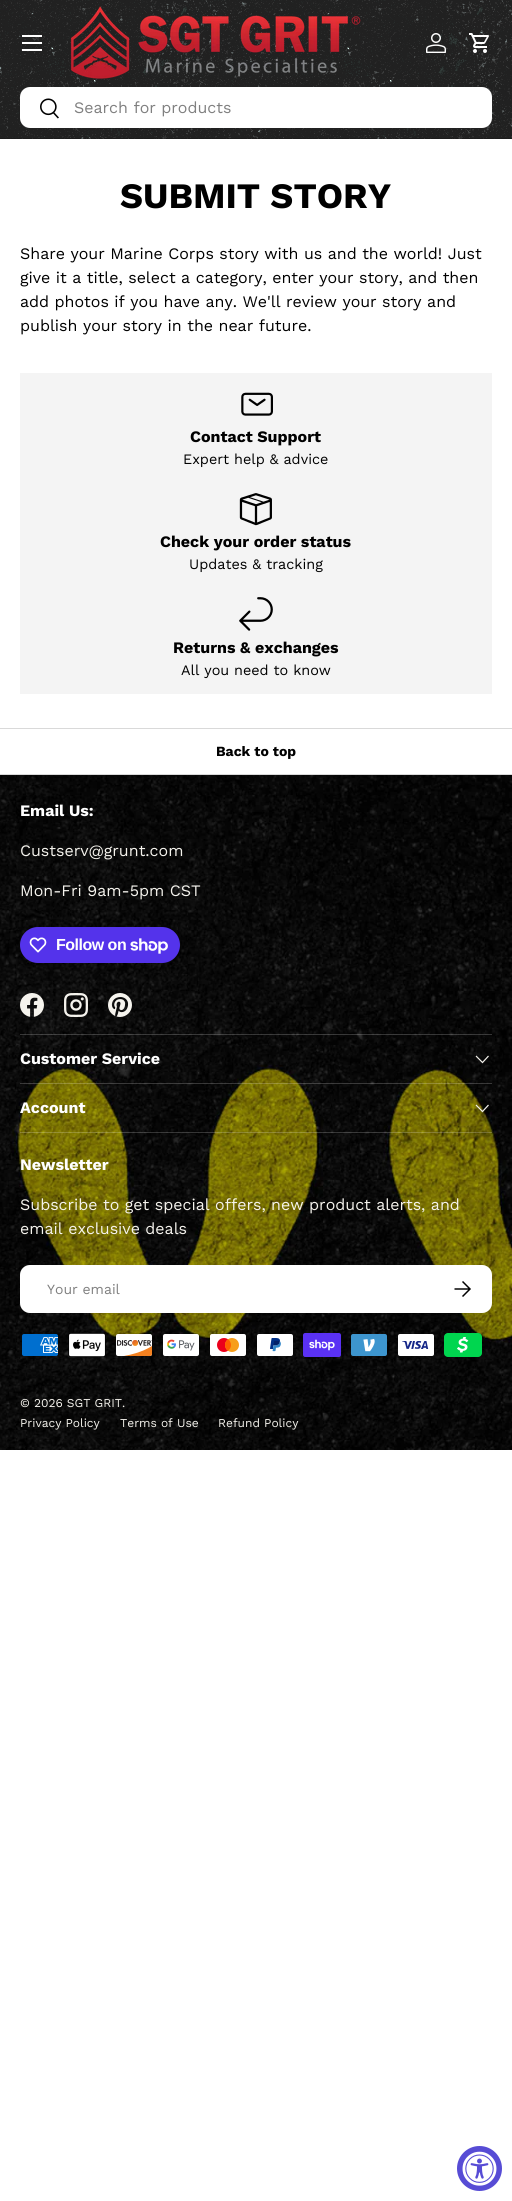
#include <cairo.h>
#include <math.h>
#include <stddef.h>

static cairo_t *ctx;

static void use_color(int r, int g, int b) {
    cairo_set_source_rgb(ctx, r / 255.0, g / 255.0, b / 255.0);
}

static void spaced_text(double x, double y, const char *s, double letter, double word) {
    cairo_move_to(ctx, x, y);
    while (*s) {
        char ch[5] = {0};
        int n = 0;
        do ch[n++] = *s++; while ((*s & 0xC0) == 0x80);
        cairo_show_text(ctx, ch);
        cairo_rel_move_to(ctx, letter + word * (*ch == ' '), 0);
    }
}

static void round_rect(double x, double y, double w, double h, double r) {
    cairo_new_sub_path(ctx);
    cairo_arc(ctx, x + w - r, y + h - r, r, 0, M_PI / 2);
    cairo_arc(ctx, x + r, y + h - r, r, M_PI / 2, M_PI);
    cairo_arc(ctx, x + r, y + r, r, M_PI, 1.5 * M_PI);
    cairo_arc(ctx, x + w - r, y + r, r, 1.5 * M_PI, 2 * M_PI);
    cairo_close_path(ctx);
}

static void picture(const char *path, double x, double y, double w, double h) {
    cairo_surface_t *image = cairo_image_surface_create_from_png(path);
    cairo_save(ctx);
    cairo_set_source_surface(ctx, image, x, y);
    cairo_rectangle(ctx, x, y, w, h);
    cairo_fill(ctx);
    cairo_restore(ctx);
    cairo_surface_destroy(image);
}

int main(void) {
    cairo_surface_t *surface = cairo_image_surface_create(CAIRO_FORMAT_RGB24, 512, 2201);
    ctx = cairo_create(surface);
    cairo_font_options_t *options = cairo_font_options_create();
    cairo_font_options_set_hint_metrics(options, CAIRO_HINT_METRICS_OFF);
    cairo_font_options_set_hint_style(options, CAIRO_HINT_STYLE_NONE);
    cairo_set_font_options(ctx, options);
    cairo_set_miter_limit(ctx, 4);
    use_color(255, 255, 255);
    cairo_paint(ctx);
    use_color(33, 33, 33);
    cairo_rectangle(ctx, 0, 0, 512, 139);
    cairo_fill(ctx);
    picture("img1.png", 0, 0, 512, 139);
    cairo_set_source_rgba(ctx, 0, 0, 0, 0.15);
    cairo_rectangle(ctx, 0, 138, 512, 1);
    cairo_fill(ctx);
    use_color(255, 255, 255);
    cairo_rectangle(ctx, 22, 35, 20, 2);
    cairo_fill(ctx);
    cairo_rectangle(ctx, 22, 49, 20, 2);
    cairo_fill(ctx);
    cairo_rectangle(ctx, 22, 42, 20, 2);
    cairo_fill(ctx);
    picture("img2.png", 70, 6, 291, 73);
    picture("img3.png", 426, 33, 20, 20);
    picture("img4.png", 469, 33, 20, 20);
    round_rect(20, 87, 472, 41, 10);
    cairo_fill(ctx);
    picture("img5.png", 40, 98, 19, 21);
    cairo_select_font_face(ctx, "Work Sans", CAIRO_FONT_SLANT_NORMAL, CAIRO_FONT_WEIGHT_NORMAL);
    cairo_set_font_size(ctx, 16);
    use_color(128, 128, 128);
    cairo_move_to(ctx, 74, 113);
    cairo_show_text(ctx, "Search for products");
    cairo_select_font_face(ctx, "Work Sans", CAIRO_FONT_SLANT_NORMAL, CAIRO_FONT_WEIGHT_BOLD);
    cairo_set_font_size(ctx, 35.75);
    use_color(0, 0, 0);
    cairo_move_to(ctx, 120, 208);
    cairo_show_text(ctx, "SUBMIT STORY");
    cairo_select_font_face(ctx, "Work Sans", CAIRO_FONT_SLANT_NORMAL, CAIRO_FONT_WEIGHT_NORMAL);
    cairo_set_font_size(ctx, 16);
    cairo_move_to(ctx, 20, 259);
    cairo_show_text(ctx, "Share your Marine Corps story with us and the world! Just");
    cairo_move_to(ctx, 20, 283);
    cairo_show_text(ctx, "give it a title, select a category, enter your story, and then");
    cairo_move_to(ctx, 20, 307);
    cairo_show_text(ctx, "add photos if you have any. We'll review your story and");
    cairo_move_to(ctx, 20, 331);
    cairo_show_text(ctx, "publish your story in the near future.");
    use_color(244, 244, 244);
    cairo_rectangle(ctx, 20, 373, 472, 321);
    cairo_fill(ctx);
    picture("img6.png", 241, 392, 32, 24);
    cairo_select_font_face(ctx, "Work Sans", CAIRO_FONT_SLANT_NORMAL, CAIRO_FONT_WEIGHT_BOLD);
    use_color(0, 0, 0);
    cairo_move_to(ctx, 190, 442);
    cairo_show_text(ctx, "Contact Support");
    cairo_select_font_face(ctx, "Work Sans", CAIRO_FONT_SLANT_NORMAL, CAIRO_FONT_WEIGHT_NORMAL);
    cairo_set_font_size(ctx, 14.4);
    cairo_move_to(ctx, 183, 464);
    cairo_show_text(ctx, "Expert help & advice");
    picture("img7.png", 239, 493, 33, 33);
    cairo_select_font_face(ctx, "Work Sans", CAIRO_FONT_SLANT_NORMAL, CAIRO_FONT_WEIGHT_BOLD);
    cairo_set_font_size(ctx, 16);
    cairo_move_to(ctx, 160, 547);
    cairo_show_text(ctx, "Check your order status");
    cairo_select_font_face(ctx, "Work Sans", CAIRO_FONT_SLANT_NORMAL, CAIRO_FONT_WEIGHT_NORMAL);
    cairo_set_font_size(ctx, 14.4);
    cairo_move_to(ctx, 189, 569);
    cairo_show_text(ctx, "Updates & tracking");
    picture("img8.png", 239, 597, 34, 34);
    cairo_select_font_face(ctx, "Work Sans", CAIRO_FONT_SLANT_NORMAL, CAIRO_FONT_WEIGHT_BOLD);
    cairo_set_font_size(ctx, 16);
    cairo_move_to(ctx, 173, 653);
    cairo_show_text(ctx, "Returns & exchanges");
    cairo_select_font_face(ctx, "Work Sans", CAIRO_FONT_SLANT_NORMAL, CAIRO_FONT_WEIGHT_NORMAL);
    cairo_set_font_size(ctx, 14.4);
    cairo_move_to(ctx, 181, 675);
    cairo_show_text(ctx, "All you need to know");
    use_color(217, 217, 217);
    cairo_rectangle(ctx, 0, 728, 512, 1);
    cairo_fill(ctx);
    cairo_rectangle(ctx, 0, 774, 512, 1);
    cairo_fill(ctx);
    cairo_select_font_face(ctx, "Work Sans", CAIRO_FONT_SLANT_NORMAL, CAIRO_FONT_WEIGHT_BOLD);
    cairo_set_font_size(ctx, 14);
    use_color(0, 0, 0);
    cairo_move_to(ctx, 216, 756);
    cairo_show_text(ctx, "Back to top");
    picture("img9.png", 0, 775, 512, 675);
    cairo_set_font_size(ctx, 16);
    use_color(255, 255, 255);
    cairo_move_to(ctx, 20, 816);
    cairo_show_text(ctx, "Email Us:");
    cairo_select_font_face(ctx, "Work Sans", CAIRO_FONT_SLANT_NORMAL, CAIRO_FONT_WEIGHT_NORMAL);
    use_color(245, 243, 237);
    cairo_move_to(ctx, 20, 856);
    cairo_show_text(ctx, "Custserv@grunt.com");
    cairo_move_to(ctx, 20, 896);
    cairo_show_text(ctx, "Mon-Fri 9am-5pm CST");
    use_color(84, 51, 235);
    round_rect(20, 927, 160, 36, 18);
    cairo_fill(ctx);
    picture("img10.png", 29, 937, 18, 16);
    cairo_select_font_face(ctx, "Liberation Sans", CAIRO_FONT_SLANT_NORMAL, CAIRO_FONT_WEIGHT_BOLD);
    use_color(255, 255, 255);
    spaced_text(56, 950, "Follow on", -0.5, 0);
    picture("img11.png", 130, 938, 38, 16);
    picture("img12.png", 20, 993, 24, 24);
    picture("img13.png", 64, 993, 24, 24);
    picture("img14.png", 108, 993, 24, 24);
    cairo_set_source_rgba(ctx, 1, 1, 1, 0.2);
    cairo_rectangle(ctx, 20, 1034, 472, 1);
    cairo_fill(ctx);
    cairo_rectangle(ctx, 20, 1083, 472, 1);
    cairo_fill(ctx);
    cairo_select_font_face(ctx, "Work Sans", CAIRO_FONT_SLANT_NORMAL, CAIRO_FONT_WEIGHT_BOLD);
    use_color(255, 255, 255);
    cairo_move_to(ctx, 20, 1064);
    cairo_show_text(ctx, "Customer Service");
    cairo_new_path(ctx);
    cairo_move_to(ctx, 488.5, 1056);
    cairo_line_to(ctx, 482.5, 1062.5);
    cairo_line_to(ctx, 476, 1056);
    use_color(245, 243, 237);
    cairo_set_line_width(ctx, 1.2);
    cairo_stroke(ctx);
    cairo_set_source_rgba(ctx, 1, 1, 1, 0.2);
    cairo_rectangle(ctx, 20, 1132, 472, 1);
    cairo_fill(ctx);
    use_color(255, 255, 255);
    cairo_move_to(ctx, 20, 1113);
    cairo_show_text(ctx, "Account");
    cairo_new_path(ctx);
    cairo_move_to(ctx, 488.5, 1105);
    cairo_line_to(ctx, 482.5, 1111.5);
    cairo_line_to(ctx, 476, 1105);
    use_color(245, 243, 237);
    cairo_stroke(ctx);
    use_color(255, 255, 255);
    cairo_move_to(ctx, 20, 1170);
    cairo_show_text(ctx, "Newsletter");
    cairo_select_font_face(ctx, "Work Sans", CAIRO_FONT_SLANT_NORMAL, CAIRO_FONT_WEIGHT_NORMAL);
    use_color(245, 243, 237);
    cairo_move_to(ctx, 20, 1210);
    cairo_show_text(ctx, "Subscribe to get special offers, new product alerts, and");
    cairo_move_to(ctx, 20, 1234);
    cairo_show_text(ctx, "email exclusive deals");
    use_color(255, 255, 255);
    round_rect(20, 1265, 472, 48, 10);
    cairo_fill(ctx);
    round_rect(20.5, 1265.5, 471, 47, 9.5);
    cairo_set_source_rgba(ctx, 1, 1, 1, 0.2);
    cairo_set_line_width(ctx, 1);
    cairo_stroke(ctx);
    cairo_set_font_size(ctx, 14);
    use_color(128, 128, 128);
    cairo_move_to(ctx, 47, 1294);
    cairo_show_text(ctx, "Your email");
    cairo_new_path(ctx);
    cairo_move_to(ctx, 454.5, 1289);
    cairo_line_to(ctx, 469.5, 1289);
    cairo_move_to(ctx, 462.5, 1281.5);
    cairo_line_to(ctx, 470, 1289);
    cairo_line_to(ctx, 462.5, 1296.5);
    use_color(0, 0, 0);
    cairo_set_line_width(ctx, 1.5);
    cairo_stroke(ctx);
    picture("img15.png", 22, 1334, 36, 22);
    picture("img16.png", 68, 1333, 38, 24);
    picture("img17.png", 115, 1333, 38, 23);
    picture("img18.png", 163, 1333, 37, 23);
    picture("img19.png", 209, 1333, 37, 23);
    picture("img20.png", 257, 1334, 36, 22);
    picture("img21.png", 303, 1333, 38, 24);
    picture("img22.png", 351, 1334, 36, 22);
    picture("img23.png", 398, 1334, 36, 22);
    picture("img24.png", 444, 1333, 38, 24);
    cairo_set_font_size(ctx, 12);
    use_color(245, 243, 237);
    cairo_move_to(ctx, 20, 1407);
    cairo_show_text(ctx, "© 2026 SGT GRIT.");
    cairo_move_to(ctx, 20, 1427);
    cairo_show_text(ctx, "Privacy Policy");
    cairo_move_to(ctx, 120, 1427);
    cairo_show_text(ctx, "Terms of Use");
    cairo_move_to(ctx, 218, 1427);
    cairo_show_text(ctx, "Refund Policy");
    use_color(87, 76, 213);
    cairo_new_path(ctx);
    cairo_arc(ctx, 479.5, 2168.5, 22.5, 0, 2 * M_PI);
    cairo_fill(ctx);
    picture("img25.png", 462, 2151, 35, 35);
    cairo_surface_write_to_png(surface, "result.png");
    cairo_font_options_destroy(options);
    cairo_destroy(ctx);
    cairo_surface_destroy(surface);
    return 0;
}
